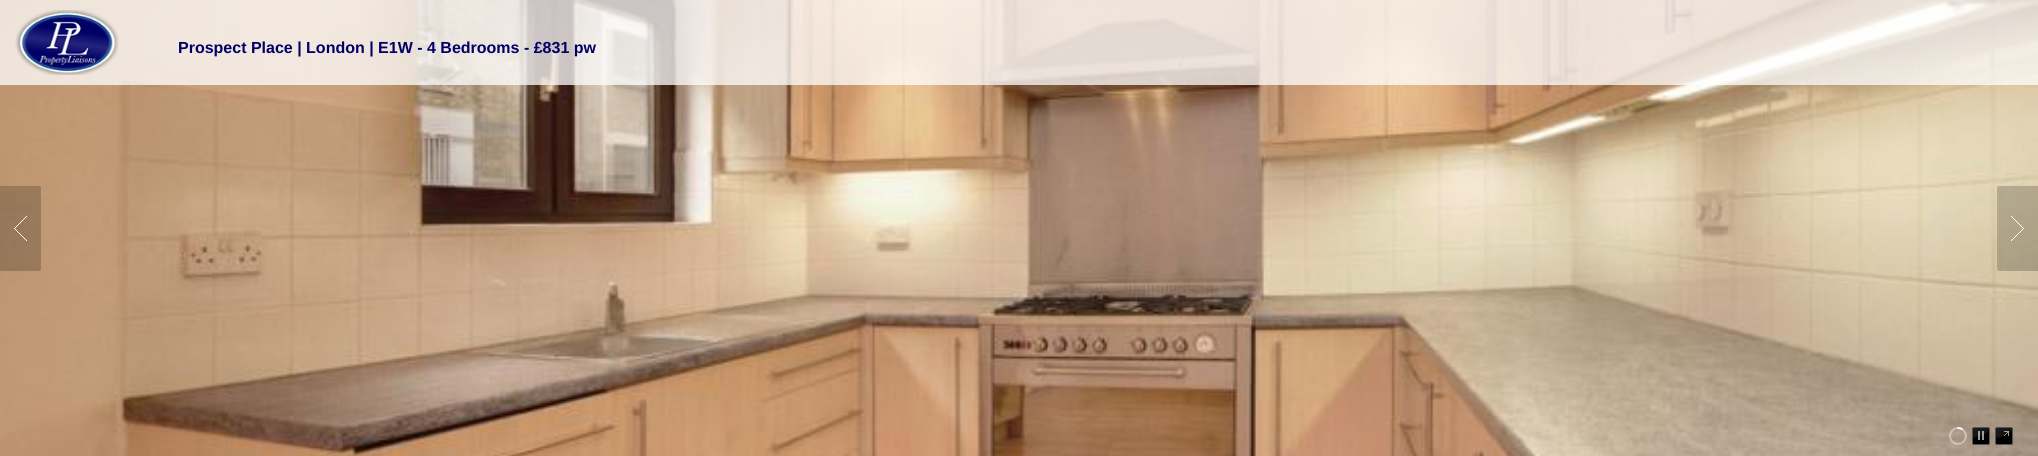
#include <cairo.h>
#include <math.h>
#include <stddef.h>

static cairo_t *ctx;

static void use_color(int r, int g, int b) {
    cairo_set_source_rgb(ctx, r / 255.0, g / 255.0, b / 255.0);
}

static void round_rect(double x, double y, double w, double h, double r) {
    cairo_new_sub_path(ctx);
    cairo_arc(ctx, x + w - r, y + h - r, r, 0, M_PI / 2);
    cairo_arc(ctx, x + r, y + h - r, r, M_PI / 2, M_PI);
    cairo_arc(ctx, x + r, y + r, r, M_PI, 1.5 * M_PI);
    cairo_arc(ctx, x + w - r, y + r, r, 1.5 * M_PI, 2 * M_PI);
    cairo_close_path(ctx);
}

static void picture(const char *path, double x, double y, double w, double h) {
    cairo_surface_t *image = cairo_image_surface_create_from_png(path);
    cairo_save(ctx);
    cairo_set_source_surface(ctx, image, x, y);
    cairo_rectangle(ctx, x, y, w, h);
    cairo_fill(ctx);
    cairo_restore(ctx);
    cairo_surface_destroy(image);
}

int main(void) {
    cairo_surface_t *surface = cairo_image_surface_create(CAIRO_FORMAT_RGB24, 2038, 456);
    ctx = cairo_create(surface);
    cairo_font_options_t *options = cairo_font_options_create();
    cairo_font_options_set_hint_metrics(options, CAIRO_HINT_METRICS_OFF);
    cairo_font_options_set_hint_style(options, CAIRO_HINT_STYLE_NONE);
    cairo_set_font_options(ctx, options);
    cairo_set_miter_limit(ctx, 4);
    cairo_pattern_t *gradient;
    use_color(255, 255, 255);
    cairo_paint(ctx);
    picture("img1.png", 0, 0, 2038, 456);
    cairo_set_source_rgba(ctx, 0, 0, 0, 0.2);
    cairo_new_path(ctx);
    cairo_move_to(ctx, 0, 186);
    cairo_line_to(ctx, 39, 186);
    cairo_curve_to(ctx, 40, 186, 41, 187, 41, 188);
    cairo_line_to(ctx, 41, 269);
    cairo_curve_to(ctx, 41, 270, 40, 271, 39, 271);
    cairo_line_to(ctx, 0, 271);
    cairo_close_path(ctx);
    cairo_fill(ctx);
    picture("img2.png", 14, 216, 13, 25);
    cairo_new_path(ctx);
    cairo_move_to(ctx, 1999, 186);
    cairo_line_to(ctx, 2038, 186);
    cairo_line_to(ctx, 2038, 271);
    cairo_line_to(ctx, 1999, 271);
    cairo_curve_to(ctx, 1998, 271, 1997, 270, 1997, 269);
    cairo_line_to(ctx, 1997, 188);
    cairo_curve_to(ctx, 1997, 187, 1998, 186, 1999, 186);
    cairo_close_path(ctx);
    cairo_fill(ctx);
    picture("img3.png", 2011, 216, 13, 25);
    use_color(0, 0, 0);
    round_rect(1972.5, 427.5, 17, 17, 1.5);
    cairo_fill_preserve(ctx);
    use_color(85, 85, 85);
    cairo_set_line_width(ctx, 1);
    cairo_stroke(ctx);
    picture("img5.png", 1949, 427, 18, 18);
    cairo_save(ctx);
    round_rect(1973, 428, 16, 16, 1);
    cairo_clip(ctx);
    gradient = cairo_pattern_create_radial(1971, 413, 0, 1971, 413, 53);
    cairo_pattern_add_color_stop_rgba(gradient, 0, 1, 1, 1, 0.15);
    cairo_pattern_add_color_stop_rgba(gradient, 1, 1, 1, 1, 0);
    cairo_set_source(ctx, gradient);
    cairo_pattern_destroy(gradient);
    cairo_arc(ctx, 1971, 413, 25, 0, 2 * M_PI);
    cairo_fill(ctx);
    cairo_restore(ctx);
    picture("img4.png", 1978, 431, 6, 9);
    use_color(0, 0, 0);
    round_rect(1995.5, 427.5, 17, 17, 1.5);
    cairo_fill_preserve(ctx);
    use_color(85, 85, 85);
    cairo_stroke(ctx);
    cairo_save(ctx);
    round_rect(1996, 428, 16, 16, 1);
    cairo_clip(ctx);
    gradient = cairo_pattern_create_radial(1994, 413, 0, 1994, 413, 53);
    cairo_pattern_add_color_stop_rgba(gradient, 0, 1, 1, 1, 0.15);
    cairo_pattern_add_color_stop_rgba(gradient, 1, 1, 1, 1, 0);
    cairo_set_source(ctx, gradient);
    cairo_pattern_destroy(gradient);
    cairo_arc(ctx, 1994, 413, 25, 0, 2 * M_PI);
    cairo_fill(ctx);
    cairo_restore(ctx);
    picture("img6.png", 2004, 431, 5, 5);
    cairo_set_source_rgba(ctx, 1, 1, 1, 0.75);
    cairo_rectangle(ctx, 0, 0, 2038, 85);
    cairo_fill(ctx);
    picture("img7.png", 15, 10, 104, 65);
    cairo_select_font_face(ctx, "Liberation Sans", CAIRO_FONT_SLANT_NORMAL, CAIRO_FONT_WEIGHT_BOLD);
    cairo_set_font_size(ctx, 16);
    use_color(0, 0, 102);
    cairo_move_to(ctx, 178, 53);
    cairo_show_text(ctx, "Prospect Place | London | E1W - 4 Bedrooms - £831 pw");
    cairo_surface_write_to_png(surface, "result.png");
    cairo_font_options_destroy(options);
    cairo_destroy(ctx);
    cairo_surface_destroy(surface);
    return 0;
}
